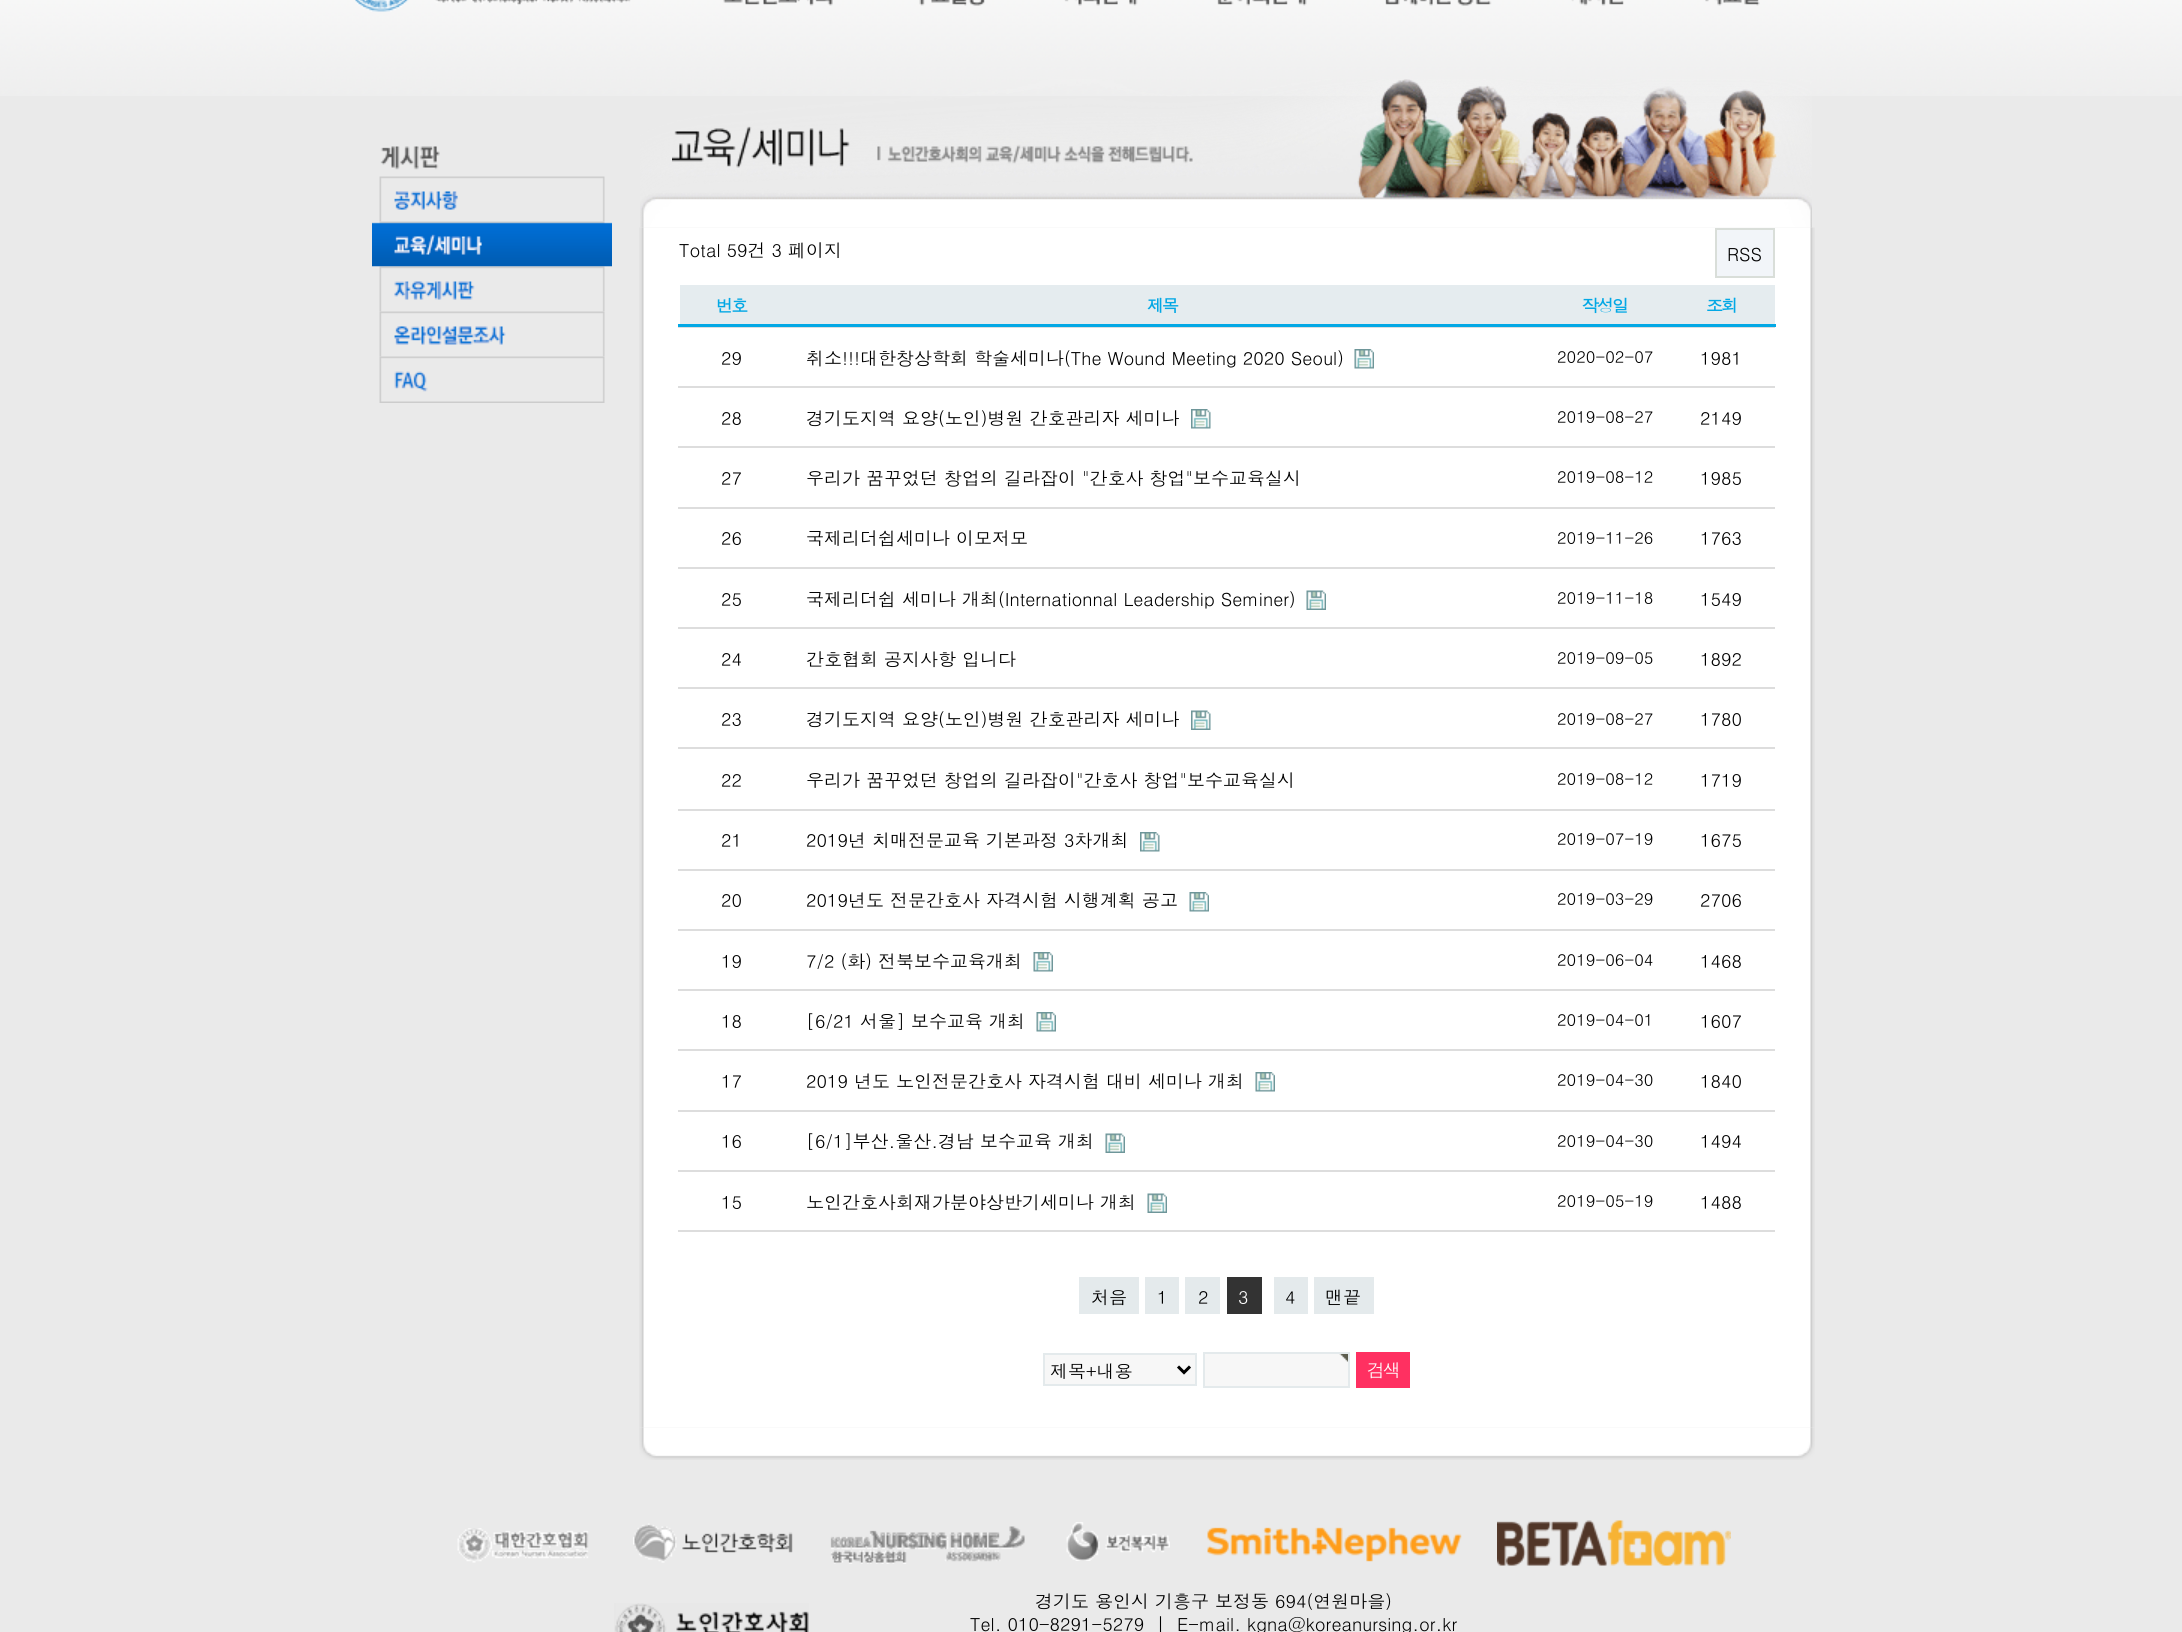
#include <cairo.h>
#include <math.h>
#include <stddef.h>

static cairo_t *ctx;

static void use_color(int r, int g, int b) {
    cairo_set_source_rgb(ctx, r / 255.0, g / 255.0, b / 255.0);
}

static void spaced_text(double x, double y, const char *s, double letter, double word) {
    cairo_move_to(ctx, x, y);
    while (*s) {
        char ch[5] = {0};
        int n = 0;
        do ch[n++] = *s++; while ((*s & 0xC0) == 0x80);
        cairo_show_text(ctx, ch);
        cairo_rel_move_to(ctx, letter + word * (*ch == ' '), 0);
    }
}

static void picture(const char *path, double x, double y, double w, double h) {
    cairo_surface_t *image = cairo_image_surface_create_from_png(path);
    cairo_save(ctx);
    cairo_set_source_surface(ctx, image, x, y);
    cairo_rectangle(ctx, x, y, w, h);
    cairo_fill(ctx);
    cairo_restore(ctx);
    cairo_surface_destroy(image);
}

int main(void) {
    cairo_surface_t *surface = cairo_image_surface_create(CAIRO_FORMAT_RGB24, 2182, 1632);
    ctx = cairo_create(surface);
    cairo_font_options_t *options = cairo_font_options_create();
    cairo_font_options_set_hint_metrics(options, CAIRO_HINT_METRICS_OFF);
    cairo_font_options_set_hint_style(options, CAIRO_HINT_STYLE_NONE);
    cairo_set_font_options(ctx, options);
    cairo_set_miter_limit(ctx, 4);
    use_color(234, 234, 234);
    cairo_paint(ctx);
    picture("img1.png", 0, 0, 2182, 96);
    picture("img2.png", 355, 0, 276, 12);
    picture("img3.png", 723, 0, 110, 6);
    picture("img4.png", 919, 0, 66, 6);
    picture("img5.png", 1064, 0, 74, 6);
    picture("img6.png", 1217, 0, 90, 6);
    picture("img7.png", 1385, 0, 107, 6);
    picture("img8.png", 1571, 0, 53, 6);
    picture("img9.png", 1705, 0, 55, 6);
    picture("img10.png", 380, 146, 60, 24);
    picture("img11.png", 379, 176, 226, 46);
    picture("img12.png", 372, 221, 240, 46);
    picture("img13.png", 372, 266, 240, 46);
    picture("img14.png", 379, 311, 226, 46);
    picture("img15.png", 379, 356, 226, 47);
    picture("img16.png", 640, 79, 1172, 149);
    picture("img17.png", 672, 126, 521, 42);
    picture("img18.png", 639, 227, 1176, 1201);
    cairo_select_font_face(ctx, "Dotum", CAIRO_FONT_SLANT_NORMAL, CAIRO_FONT_WEIGHT_NORMAL);
    cairo_set_font_size(ctx, 18);
    use_color(0, 0, 0);
    cairo_move_to(ctx, 679, 257);
    cairo_show_text(ctx, "Total 59건 3 페이지");
    use_color(242, 245, 249);
    cairo_rectangle(ctx, 1716, 229, 58, 48);
    cairo_fill_preserve(ctx);
    use_color(217, 222, 217);
    cairo_stroke(ctx);
    use_color(0, 0, 0);
    cairo_move_to(ctx, 1727, 261);
    cairo_show_text(ctx, "RSS");
    use_color(229, 236, 239);
    cairo_rectangle(ctx, 680, 285, 1095, 39);
    cairo_fill(ctx);
    cairo_select_font_face(ctx, "Dotum", CAIRO_FONT_SLANT_NORMAL, CAIRO_FONT_WEIGHT_BOLD);
    cairo_set_font_size(ctx, 17);
    use_color(3, 168, 229);
    spaced_text(716, 312, "번호", -2, 0);
    spaced_text(1147, 312, "제목", -2, 0);
    spaced_text(1582, 312, "작성일", -2, 0);
    cairo_rectangle(ctx, 678, 324, 1098, 3);
    cairo_fill(ctx);
    spaced_text(1706, 312, "조회", -2, 0);
    cairo_select_font_face(ctx, "Dotum", CAIRO_FONT_SLANT_NORMAL, CAIRO_FONT_WEIGHT_NORMAL);
    cairo_set_font_size(ctx, 18);
    use_color(0, 0, 0);
    cairo_move_to(ctx, 721, 365);
    cairo_show_text(ctx, "29");
    cairo_move_to(ctx, 806, 365);
    cairo_show_text(ctx, "취소!!!대한창상학회 학술세미나(The Wound Meeting 2020 Seoul)");
    picture("img19.png", 1354, 349, 20, 20);
    cairo_set_font_size(ctx, 16.5);
    cairo_move_to(ctx, 1557, 363);
    cairo_show_text(ctx, "2020-02-07");
    use_color(221, 221, 221);
    cairo_rectangle(ctx, 678, 327, 1097, 1);
    cairo_fill(ctx);
    cairo_set_font_size(ctx, 18);
    use_color(0, 0, 0);
    cairo_move_to(ctx, 1700, 365);
    cairo_show_text(ctx, "1981");
    cairo_move_to(ctx, 721, 425);
    cairo_show_text(ctx, "28");
    cairo_move_to(ctx, 806, 425);
    cairo_show_text(ctx, "경기도지역 요양(노인)병원 간호관리자 세미나");
    picture("img20.png", 1191, 409, 20, 20);
    cairo_set_font_size(ctx, 16.5);
    cairo_move_to(ctx, 1557, 423);
    cairo_show_text(ctx, "2019-08-27");
    use_color(221, 221, 221);
    cairo_rectangle(ctx, 678, 386, 1097, 2);
    cairo_fill(ctx);
    cairo_set_font_size(ctx, 18);
    use_color(0, 0, 0);
    cairo_move_to(ctx, 1700, 425);
    cairo_show_text(ctx, "2149");
    cairo_move_to(ctx, 721, 485);
    cairo_show_text(ctx, "27");
    cairo_move_to(ctx, 806, 485);
    cairo_show_text(ctx, "우리가 꿈꾸었던 창업의 길라잡이 \"간호사 창업\"보수교육실시");
    cairo_set_font_size(ctx, 16.5);
    cairo_move_to(ctx, 1557, 483);
    cairo_show_text(ctx, "2019-08-12");
    use_color(221, 221, 221);
    cairo_rectangle(ctx, 678, 446, 1097, 2);
    cairo_fill(ctx);
    cairo_set_font_size(ctx, 18);
    use_color(0, 0, 0);
    cairo_move_to(ctx, 1700, 485);
    cairo_show_text(ctx, "1985");
    cairo_move_to(ctx, 721, 545);
    cairo_show_text(ctx, "26");
    cairo_move_to(ctx, 806, 545);
    cairo_show_text(ctx, "국제리더쉽세미나 이모저모");
    cairo_set_font_size(ctx, 16.5);
    cairo_move_to(ctx, 1557, 544);
    cairo_show_text(ctx, "2019-11-26");
    use_color(221, 221, 221);
    cairo_rectangle(ctx, 678, 507, 1097, 2);
    cairo_fill(ctx);
    cairo_set_font_size(ctx, 18);
    use_color(0, 0, 0);
    cairo_move_to(ctx, 1700, 545);
    cairo_show_text(ctx, "1763");
    cairo_move_to(ctx, 721, 606);
    cairo_show_text(ctx, "25");
    cairo_move_to(ctx, 806, 606);
    cairo_show_text(ctx, "국제리더쉽 세미나 개최(Internationnal Leadership Seminer)");
    picture("img21.png", 1306, 590, 20, 20);
    cairo_set_font_size(ctx, 16.5);
    cairo_move_to(ctx, 1557, 604);
    cairo_show_text(ctx, "2019-11-18");
    use_color(221, 221, 221);
    cairo_rectangle(ctx, 678, 567, 1097, 2);
    cairo_fill(ctx);
    cairo_set_font_size(ctx, 18);
    use_color(0, 0, 0);
    cairo_move_to(ctx, 1700, 606);
    cairo_show_text(ctx, "1549");
    cairo_move_to(ctx, 721, 666);
    cairo_show_text(ctx, "24");
    cairo_move_to(ctx, 806, 666);
    cairo_show_text(ctx, "간호협회 공지사항 입니다");
    cairo_set_font_size(ctx, 16.5);
    cairo_move_to(ctx, 1557, 664);
    cairo_show_text(ctx, "2019-09-05");
    use_color(221, 221, 221);
    cairo_rectangle(ctx, 678, 627, 1097, 2);
    cairo_fill(ctx);
    cairo_set_font_size(ctx, 18);
    use_color(0, 0, 0);
    cairo_move_to(ctx, 1700, 666);
    cairo_show_text(ctx, "1892");
    cairo_move_to(ctx, 721, 726);
    cairo_show_text(ctx, "23");
    cairo_move_to(ctx, 806, 726);
    cairo_show_text(ctx, "경기도지역 요양(노인)병원 간호관리자 세미나");
    picture("img22.png", 1191, 710, 20, 20);
    cairo_set_font_size(ctx, 16.5);
    cairo_move_to(ctx, 1557, 725);
    cairo_show_text(ctx, "2019-08-27");
    use_color(221, 221, 221);
    cairo_rectangle(ctx, 678, 687, 1097, 2);
    cairo_fill(ctx);
    cairo_set_font_size(ctx, 18);
    use_color(0, 0, 0);
    cairo_move_to(ctx, 1700, 726);
    cairo_show_text(ctx, "1780");
    cairo_move_to(ctx, 721, 787);
    cairo_show_text(ctx, "22");
    cairo_move_to(ctx, 806, 787);
    cairo_show_text(ctx, "우리가 꿈꾸었던 창업의 길라잡이\"간호사 창업\"보수교육실시");
    cairo_set_font_size(ctx, 16.5);
    cairo_move_to(ctx, 1557, 785);
    cairo_show_text(ctx, "2019-08-12");
    use_color(221, 221, 221);
    cairo_rectangle(ctx, 678, 747, 1097, 2);
    cairo_fill(ctx);
    cairo_set_font_size(ctx, 18);
    use_color(0, 0, 0);
    cairo_move_to(ctx, 1700, 787);
    cairo_show_text(ctx, "1719");
    cairo_move_to(ctx, 721, 847);
    cairo_show_text(ctx, "21");
    cairo_move_to(ctx, 806, 847);
    cairo_show_text(ctx, "2019년 치매전문교육 기본과정 3차개최");
    picture("img20.png", 1140, 832, 20, 20);
    cairo_set_font_size(ctx, 16.5);
    cairo_move_to(ctx, 1557, 845);
    cairo_show_text(ctx, "2019-07-19");
    use_color(221, 221, 221);
    cairo_rectangle(ctx, 678, 809, 1097, 2);
    cairo_fill(ctx);
    cairo_set_font_size(ctx, 18);
    use_color(0, 0, 0);
    cairo_move_to(ctx, 1700, 847);
    cairo_show_text(ctx, "1675");
    cairo_move_to(ctx, 721, 907);
    cairo_show_text(ctx, "20");
    cairo_move_to(ctx, 806, 907);
    cairo_show_text(ctx, "2019년도 전문간호사 자격시험 시행계획 공고");
    picture("img19.png", 1189, 892, 20, 20);
    cairo_set_font_size(ctx, 16.5);
    cairo_move_to(ctx, 1557, 905);
    cairo_show_text(ctx, "2019-03-29");
    use_color(221, 221, 221);
    cairo_rectangle(ctx, 678, 869, 1097, 2);
    cairo_fill(ctx);
    cairo_set_font_size(ctx, 18);
    use_color(0, 0, 0);
    cairo_move_to(ctx, 1700, 907);
    cairo_show_text(ctx, "2706");
    cairo_move_to(ctx, 721, 968);
    cairo_show_text(ctx, "19");
    cairo_move_to(ctx, 806, 968);
    cairo_show_text(ctx, "7/2 (화) 전북보수교육개최");
    picture("img23.png", 1033, 952, 20, 20);
    cairo_set_font_size(ctx, 16.5);
    cairo_move_to(ctx, 1557, 966);
    cairo_show_text(ctx, "2019-06-04");
    use_color(221, 221, 221);
    cairo_rectangle(ctx, 678, 929, 1097, 2);
    cairo_fill(ctx);
    cairo_set_font_size(ctx, 18);
    use_color(0, 0, 0);
    cairo_move_to(ctx, 1700, 968);
    cairo_show_text(ctx, "1468");
    cairo_move_to(ctx, 721, 1028);
    cairo_show_text(ctx, "18");
    cairo_move_to(ctx, 806, 1028);
    cairo_show_text(ctx, "[6/21 서울] 보수교육 개최");
    picture("img23.png", 1036, 1012, 20, 20);
    cairo_set_font_size(ctx, 16.5);
    cairo_move_to(ctx, 1557, 1026);
    cairo_show_text(ctx, "2019-04-01");
    use_color(221, 221, 221);
    cairo_rectangle(ctx, 678, 989, 1097, 2);
    cairo_fill(ctx);
    cairo_set_font_size(ctx, 18);
    use_color(0, 0, 0);
    cairo_move_to(ctx, 1700, 1028);
    cairo_show_text(ctx, "1607");
    cairo_move_to(ctx, 721, 1088);
    cairo_show_text(ctx, "17");
    cairo_move_to(ctx, 806, 1088);
    cairo_show_text(ctx, "2019 년도 노인전문간호사 자격시험 대비 세미나 개최");
    picture("img23.png", 1255, 1072, 20, 20);
    cairo_set_font_size(ctx, 16.5);
    cairo_move_to(ctx, 1557, 1086);
    cairo_show_text(ctx, "2019-04-30");
    use_color(221, 221, 221);
    cairo_rectangle(ctx, 678, 1049, 1097, 2);
    cairo_fill(ctx);
    cairo_set_font_size(ctx, 18);
    use_color(0, 0, 0);
    cairo_move_to(ctx, 1700, 1088);
    cairo_show_text(ctx, "1840");
    cairo_move_to(ctx, 721, 1148);
    cairo_show_text(ctx, "16");
    cairo_move_to(ctx, 806, 1148);
    cairo_show_text(ctx, "[6/1]부산.울산.경남 보수교육 개최");
    picture("img24.png", 1105, 1133, 20, 20);
    cairo_set_font_size(ctx, 16.5);
    cairo_move_to(ctx, 1557, 1147);
    cairo_show_text(ctx, "2019-04-30");
    use_color(221, 221, 221);
    cairo_rectangle(ctx, 678, 1110, 1097, 2);
    cairo_fill(ctx);
    cairo_set_font_size(ctx, 18);
    use_color(0, 0, 0);
    cairo_move_to(ctx, 1700, 1148);
    cairo_show_text(ctx, "1494");
    cairo_move_to(ctx, 721, 1209);
    cairo_show_text(ctx, "15");
    cairo_move_to(ctx, 806, 1209);
    cairo_show_text(ctx, "노인간호사회재가분야상반기세미나 개최");
    picture("img21.png", 1147, 1193, 20, 20);
    cairo_set_font_size(ctx, 16.5);
    cairo_move_to(ctx, 1557, 1207);
    cairo_show_text(ctx, "2019-05-19");
    use_color(221, 221, 221);
    cairo_rectangle(ctx, 678, 1170, 1097, 2);
    cairo_fill(ctx);
    cairo_rectangle(ctx, 678, 1230, 1097, 2);
    cairo_fill(ctx);
    cairo_set_font_size(ctx, 18);
    use_color(0, 0, 0);
    cairo_move_to(ctx, 1700, 1209);
    cairo_show_text(ctx, "1488");
    use_color(228, 234, 236);
    cairo_rectangle(ctx, 1079, 1277, 60, 37);
    cairo_fill(ctx);
    use_color(0, 0, 0);
    cairo_move_to(ctx, 1091, 1304);
    cairo_show_text(ctx, "처음");
    use_color(228, 234, 236);
    cairo_rectangle(ctx, 1145, 1277, 34, 37);
    cairo_fill(ctx);
    use_color(0, 0, 0);
    cairo_move_to(ctx, 1157, 1304);
    cairo_show_text(ctx, "1");
    use_color(228, 234, 236);
    cairo_rectangle(ctx, 1185, 1277, 35, 37);
    cairo_fill(ctx);
    use_color(0, 0, 0);
    cairo_move_to(ctx, 1198, 1304);
    cairo_show_text(ctx, "2");
    use_color(51, 51, 51);
    cairo_rectangle(ctx, 1227, 1277, 35, 37);
    cairo_fill(ctx);
    use_color(255, 255, 255);
    cairo_move_to(ctx, 1238, 1304);
    cairo_show_text(ctx, "3");
    use_color(228, 234, 236);
    cairo_rectangle(ctx, 1274, 1277, 34, 37);
    cairo_fill(ctx);
    use_color(0, 0, 0);
    cairo_move_to(ctx, 1285, 1304);
    cairo_show_text(ctx, "4");
    use_color(228, 234, 236);
    cairo_rectangle(ctx, 1314, 1277, 60, 37);
    cairo_fill(ctx);
    use_color(0, 0, 0);
    cairo_move_to(ctx, 1325, 1304);
    cairo_show_text(ctx, "맨끝");
    use_color(247, 247, 247);
    cairo_rectangle(ctx, 1044, 1354, 152, 31);
    cairo_fill_preserve(ctx);
    use_color(228, 234, 236);
    cairo_stroke(ctx);
    cairo_new_path(ctx);
    cairo_move_to(ctx, 1178, 1366.5);
    cairo_line_to(ctx, 1184, 1372.5);
    cairo_line_to(ctx, 1190, 1366.5);
    use_color(0, 0, 0);
    cairo_set_line_width(ctx, 3);
    cairo_stroke(ctx);
    cairo_move_to(ctx, 1050, 1378);
    cairo_show_text(ctx, "제목+내용");
    use_color(247, 247, 247);
    cairo_rectangle(ctx, 1205, 1354, 143, 32);
    cairo_fill(ctx);
    picture("img25.png", 1339, 1354, 9, 8);
    cairo_rectangle(ctx, 1204, 1353, 145, 34);
    use_color(228, 234, 236);
    cairo_set_line_width(ctx, 2);
    cairo_stroke(ctx);
    use_color(255, 48, 97);
    cairo_rectangle(ctx, 1356, 1352, 54, 36);
    cairo_fill(ctx);
    use_color(255, 255, 255);
    spaced_text(1367, 1377, "검색", -2, 0);
    picture("img26.png", 639, 1427, 1176, 33);
    picture("img27.png", 457, 1528, 132, 35);
    picture("img28.png", 633, 1523, 160, 40);
    picture("img29.png", 830, 1526, 195, 38);
    picture("img30.png", 1066, 1522, 104, 39);
    picture("img31.png", 1207, 1527, 255, 35);
    picture("img32.png", 1497, 1520, 234, 46);
    picture("img33.png", 614, 1603, 195, 29);
    use_color(0, 0, 0);
    cairo_move_to(ctx, 1035, 1608);
    cairo_show_text(ctx, "경기도 용인시 기흥구 보정동 694(연원마을)");
    cairo_move_to(ctx, 970, 1631);
    cairo_show_text(ctx, "Tel. 010-8291-5279");
    cairo_move_to(ctx, 1156, 1631);
    cairo_show_text(ctx, "|  E-mail. kgna@koreanursing.or.kr");
    cairo_surface_write_to_png(surface, "result.png");
    cairo_font_options_destroy(options);
    cairo_destroy(ctx);
    cairo_surface_destroy(surface);
    return 0;
}
